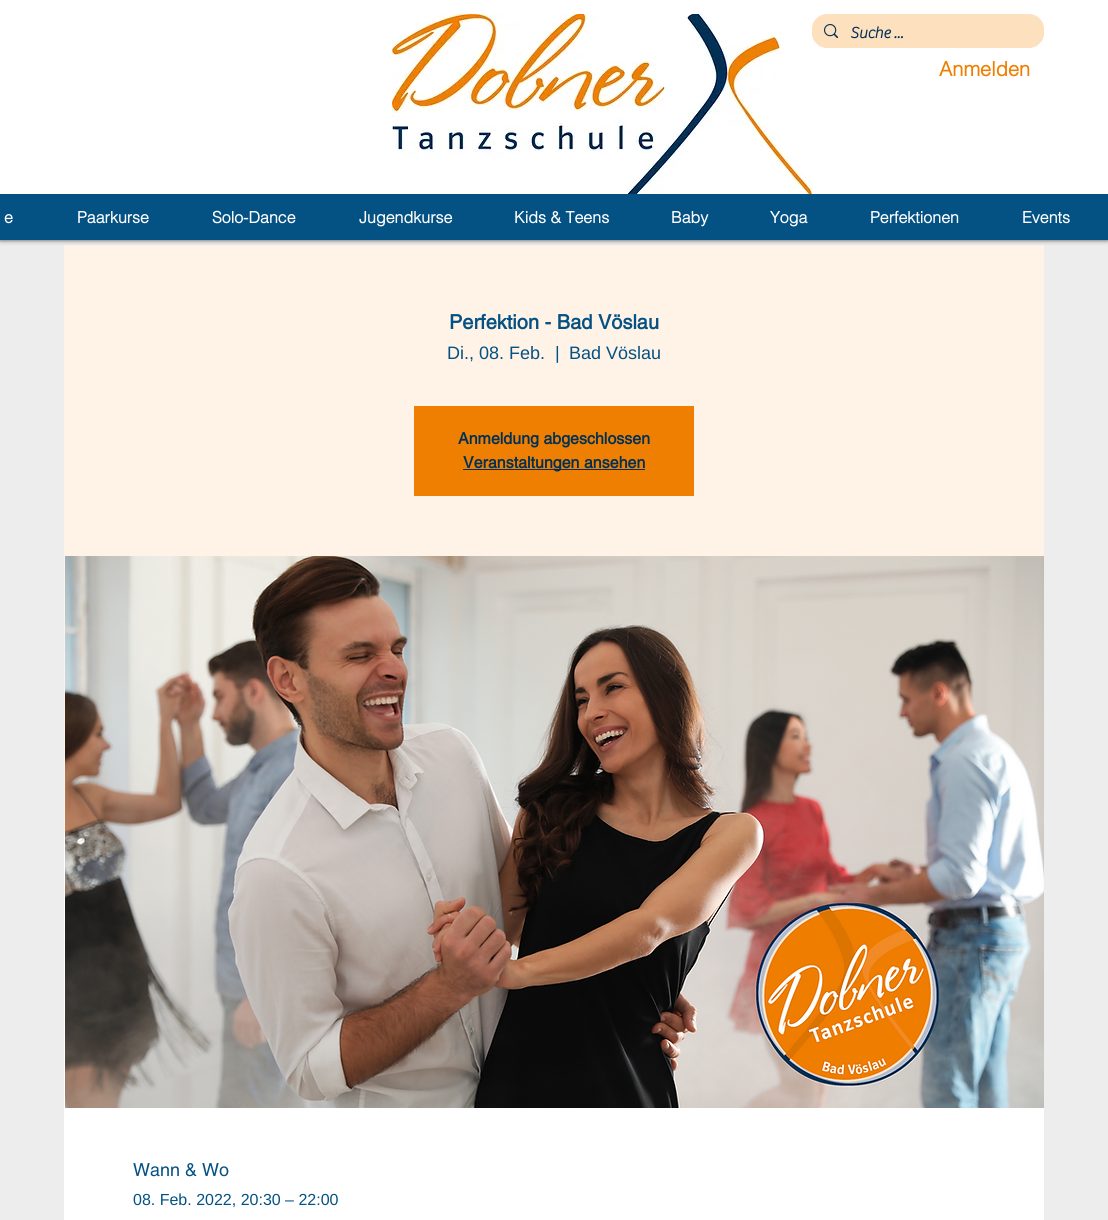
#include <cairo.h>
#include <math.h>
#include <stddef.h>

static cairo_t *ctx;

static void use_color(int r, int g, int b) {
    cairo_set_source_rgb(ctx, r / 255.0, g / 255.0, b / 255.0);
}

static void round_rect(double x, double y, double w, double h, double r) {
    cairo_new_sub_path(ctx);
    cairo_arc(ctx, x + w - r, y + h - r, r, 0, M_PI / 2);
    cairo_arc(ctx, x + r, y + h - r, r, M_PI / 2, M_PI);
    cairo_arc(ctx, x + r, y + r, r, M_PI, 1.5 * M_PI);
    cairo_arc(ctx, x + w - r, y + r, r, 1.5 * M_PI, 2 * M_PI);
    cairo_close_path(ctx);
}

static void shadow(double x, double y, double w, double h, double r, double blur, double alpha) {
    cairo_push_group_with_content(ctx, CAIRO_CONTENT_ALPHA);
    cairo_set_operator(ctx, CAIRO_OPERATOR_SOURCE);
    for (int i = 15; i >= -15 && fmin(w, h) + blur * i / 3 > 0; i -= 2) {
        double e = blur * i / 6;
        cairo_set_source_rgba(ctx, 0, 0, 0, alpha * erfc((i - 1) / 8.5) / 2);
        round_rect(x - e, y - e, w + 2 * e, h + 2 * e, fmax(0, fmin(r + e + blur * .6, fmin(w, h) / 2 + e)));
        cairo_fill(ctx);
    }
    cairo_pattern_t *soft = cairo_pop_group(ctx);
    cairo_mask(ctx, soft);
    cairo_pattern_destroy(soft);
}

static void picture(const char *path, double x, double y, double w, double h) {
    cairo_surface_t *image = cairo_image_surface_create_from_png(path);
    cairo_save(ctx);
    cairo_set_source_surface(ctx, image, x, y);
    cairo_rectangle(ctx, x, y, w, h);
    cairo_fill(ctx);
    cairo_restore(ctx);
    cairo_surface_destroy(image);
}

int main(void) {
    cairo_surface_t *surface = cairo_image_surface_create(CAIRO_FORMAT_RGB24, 1108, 1220);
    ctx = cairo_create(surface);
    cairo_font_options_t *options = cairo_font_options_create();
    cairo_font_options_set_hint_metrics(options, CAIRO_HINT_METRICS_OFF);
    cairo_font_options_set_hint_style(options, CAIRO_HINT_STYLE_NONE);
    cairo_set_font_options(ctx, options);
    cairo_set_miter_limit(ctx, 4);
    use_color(237, 237, 237);
    cairo_paint(ctx);
    use_color(254, 243, 230);
    cairo_rectangle(ctx, 64, 245, 980, 587);
    cairo_fill(ctx);
    use_color(0, 0, 0);
    shadow(0, 0, 1108, 240, 0, 2.5, 0.7);
    use_color(255, 255, 255);
    cairo_rectangle(ctx, 0, 0, 1108, 194);
    cairo_fill(ctx);
    picture("img1.png", 392, 14, 420, 180);
    use_color(253, 224, 189);
    round_rect(812, 14, 232, 34, 15);
    cairo_fill(ctx);
    picture("img2.png", 824, 24, 14, 14);
    cairo_select_font_face(ctx, "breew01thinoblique", CAIRO_FONT_SLANT_NORMAL, CAIRO_FONT_WEIGHT_BOLD);
    cairo_set_font_size(ctx, 16);
    use_color(0, 48, 86);
    cairo_move_to(ctx, 850, 38);
    cairo_show_text(ctx, "Suche ...");
    cairo_select_font_face(ctx, "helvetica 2", CAIRO_FONT_SLANT_NORMAL, CAIRO_FONT_WEIGHT_BOLD);
    cairo_set_font_size(ctx, 20);
    use_color(238, 127, 0);
    cairo_move_to(ctx, 939, 76);
    cairo_show_text(ctx, "Anmelden");
    use_color(4, 81, 132);
    cairo_rectangle(ctx, 0, 194, 1108, 46);
    cairo_fill(ctx);
    cairo_set_font_size(ctx, 16);
    use_color(255, 255, 255);
    cairo_move_to(ctx, 4, 223);
    cairo_show_text(ctx, "e");
    cairo_move_to(ctx, 77, 223);
    cairo_show_text(ctx, "Paarkurse");
    cairo_move_to(ctx, 212, 223);
    cairo_show_text(ctx, "Solo-Dance");
    cairo_move_to(ctx, 359, 223);
    cairo_show_text(ctx, "Jugendkurse");
    cairo_move_to(ctx, 514, 223);
    cairo_show_text(ctx, "Kids & Teens");
    cairo_move_to(ctx, 671, 223);
    cairo_show_text(ctx, "Baby");
    cairo_move_to(ctx, 770, 223);
    cairo_show_text(ctx, "Yoga");
    cairo_move_to(ctx, 870, 223);
    cairo_show_text(ctx, "Perfektionen");
    cairo_move_to(ctx, 1022, 223);
    cairo_show_text(ctx, "Events");
    cairo_select_font_face(ctx, "helvetica", CAIRO_FONT_SLANT_NORMAL, CAIRO_FONT_WEIGHT_BOLD);
    cairo_set_font_size(ctx, 20);
    use_color(4, 81, 132);
    cairo_move_to(ctx, 449, 329);
    cairo_show_text(ctx, "Perfektion - Bad Vöslau");
    cairo_select_font_face(ctx, "Liberation Sans", CAIRO_FONT_SLANT_NORMAL, CAIRO_FONT_WEIGHT_NORMAL);
    cairo_set_font_size(ctx, 18);
    cairo_move_to(ctx, 447, 359);
    cairo_show_text(ctx, "Di., 08. Feb.");
    cairo_move_to(ctx, 555, 359);
    cairo_show_text(ctx, "|");
    cairo_move_to(ctx, 569, 359);
    cairo_show_text(ctx, "Bad Vöslau");
    use_color(238, 127, 0);
    cairo_rectangle(ctx, 414, 406, 280, 90);
    cairo_fill(ctx);
    cairo_select_font_face(ctx, "helvetica", CAIRO_FONT_SLANT_NORMAL, CAIRO_FONT_WEIGHT_BOLD);
    cairo_set_font_size(ctx, 16);
    use_color(0, 48, 86);
    cairo_move_to(ctx, 458, 444);
    cairo_show_text(ctx, "Anmeldung abgeschlossen");
    cairo_rectangle(ctx, 463, 469, 182, 1);
    cairo_fill(ctx);
    cairo_move_to(ctx, 463, 468);
    cairo_show_text(ctx, "Veranstaltungen ansehen");
    use_color(255, 255, 255);
    cairo_rectangle(ctx, 64, 832, 980, 388);
    cairo_fill(ctx);
    picture("img3.png", 65, 556, 979, 552);
    cairo_select_font_face(ctx, "helvetica", CAIRO_FONT_SLANT_NORMAL, CAIRO_FONT_WEIGHT_NORMAL);
    cairo_set_font_size(ctx, 18);
    use_color(4, 81, 132);
    cairo_move_to(ctx, 133, 1176);
    cairo_show_text(ctx, "Wann & Wo");
    cairo_select_font_face(ctx, "Liberation Sans", CAIRO_FONT_SLANT_NORMAL, CAIRO_FONT_WEIGHT_NORMAL);
    cairo_set_font_size(ctx, 16);
    cairo_move_to(ctx, 133, 1205);
    cairo_show_text(ctx, "08. Feb. 2022, 20:30 – 22:00");
    cairo_surface_write_to_png(surface, "result.png");
    cairo_font_options_destroy(options);
    cairo_destroy(ctx);
    cairo_surface_destroy(surface);
    return 0;
}
